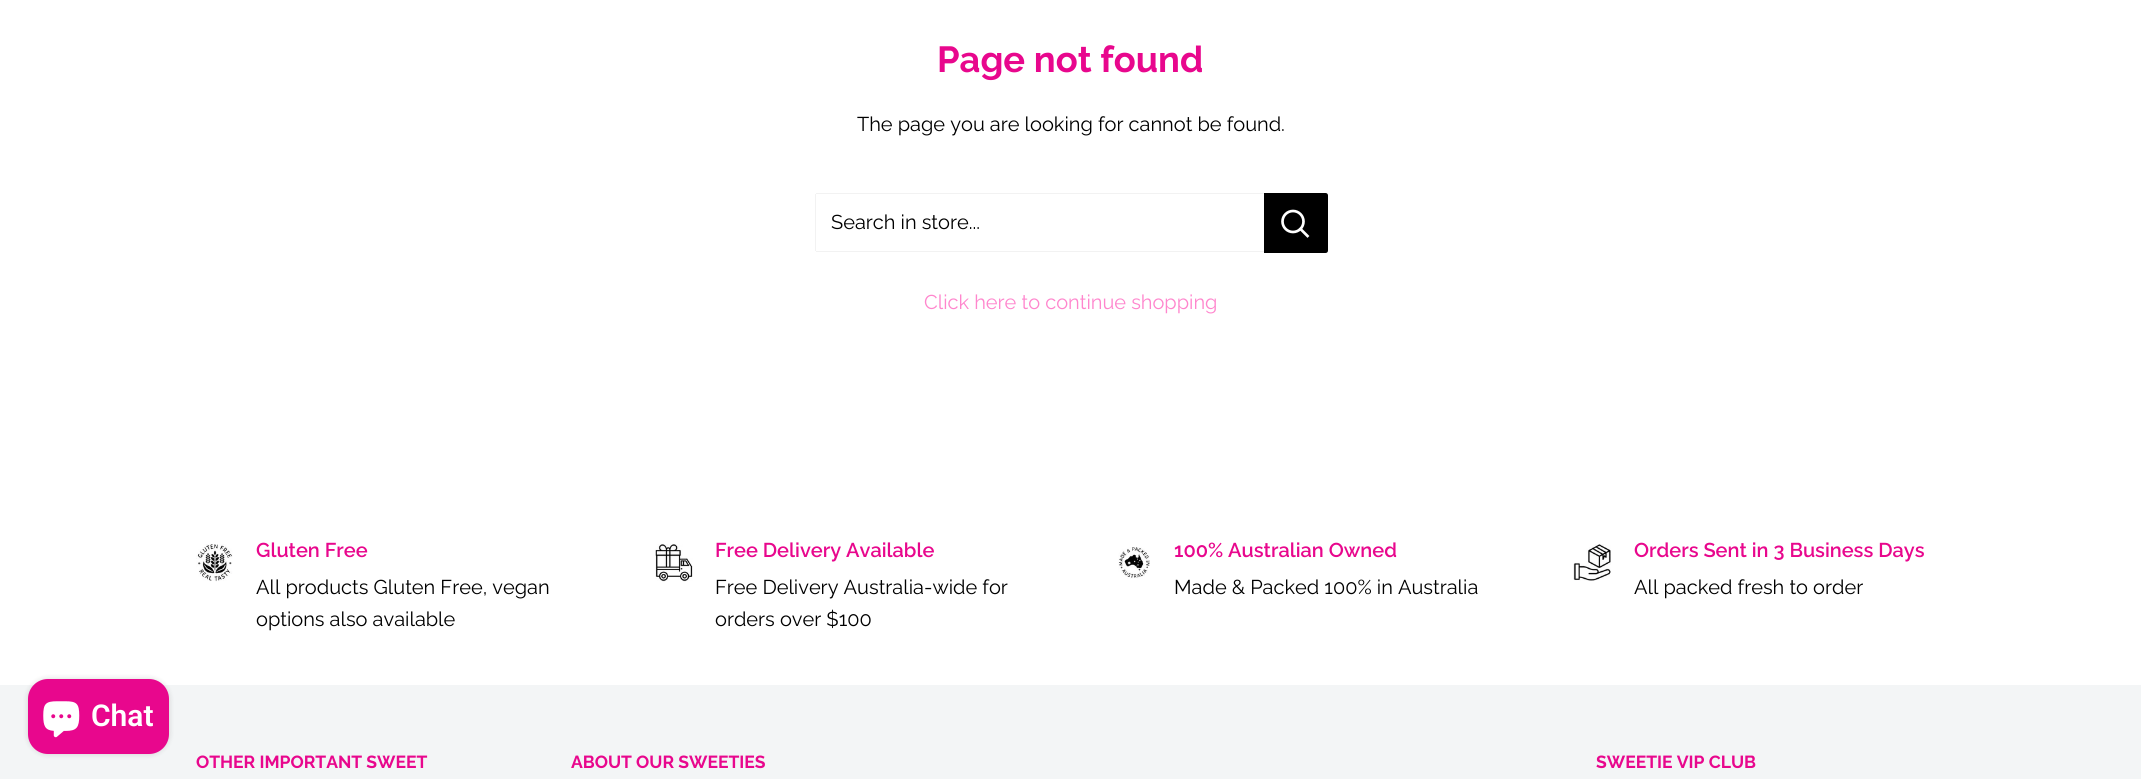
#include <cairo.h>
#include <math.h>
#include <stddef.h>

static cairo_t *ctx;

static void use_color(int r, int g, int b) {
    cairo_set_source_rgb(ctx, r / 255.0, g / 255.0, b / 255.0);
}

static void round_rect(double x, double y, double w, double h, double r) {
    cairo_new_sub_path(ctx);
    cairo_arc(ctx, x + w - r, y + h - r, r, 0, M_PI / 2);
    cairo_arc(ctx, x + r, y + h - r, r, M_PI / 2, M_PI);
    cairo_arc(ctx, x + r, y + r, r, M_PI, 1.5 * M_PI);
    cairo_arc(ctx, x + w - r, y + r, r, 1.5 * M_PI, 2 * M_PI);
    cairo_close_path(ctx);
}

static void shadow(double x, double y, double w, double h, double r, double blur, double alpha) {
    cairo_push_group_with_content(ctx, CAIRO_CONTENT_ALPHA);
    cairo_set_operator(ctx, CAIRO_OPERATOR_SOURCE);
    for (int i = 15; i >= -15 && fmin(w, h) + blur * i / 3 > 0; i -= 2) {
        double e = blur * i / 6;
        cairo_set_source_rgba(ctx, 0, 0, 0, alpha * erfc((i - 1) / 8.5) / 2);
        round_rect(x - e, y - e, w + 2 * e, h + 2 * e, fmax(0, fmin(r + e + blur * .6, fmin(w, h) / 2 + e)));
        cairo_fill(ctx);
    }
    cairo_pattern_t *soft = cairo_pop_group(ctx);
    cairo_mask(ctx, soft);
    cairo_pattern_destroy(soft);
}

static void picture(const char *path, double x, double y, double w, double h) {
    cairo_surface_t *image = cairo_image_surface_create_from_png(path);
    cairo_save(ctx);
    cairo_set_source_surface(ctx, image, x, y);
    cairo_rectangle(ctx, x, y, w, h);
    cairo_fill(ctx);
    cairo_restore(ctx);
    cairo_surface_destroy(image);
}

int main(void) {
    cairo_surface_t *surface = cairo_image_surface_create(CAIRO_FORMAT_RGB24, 2141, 779);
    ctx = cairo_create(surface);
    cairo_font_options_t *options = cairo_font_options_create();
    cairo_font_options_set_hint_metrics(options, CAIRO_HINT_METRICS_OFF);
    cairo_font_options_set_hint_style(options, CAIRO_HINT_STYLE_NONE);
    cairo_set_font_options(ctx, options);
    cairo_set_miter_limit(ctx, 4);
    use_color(255, 255, 255);
    cairo_paint(ctx);
    cairo_select_font_face(ctx, "Raleway", CAIRO_FONT_SLANT_NORMAL, CAIRO_FONT_WEIGHT_BOLD);
    cairo_set_font_size(ctx, 36.25);
    use_color(232, 7, 141);
    cairo_move_to(ctx, 937, 72);
    cairo_show_text(ctx, "Page not found");
    cairo_select_font_face(ctx, "Raleway", CAIRO_FONT_SLANT_NORMAL, CAIRO_FONT_WEIGHT_NORMAL);
    cairo_set_font_size(ctx, 20);
    use_color(0, 0, 0);
    cairo_move_to(ctx, 857, 131);
    cairo_show_text(ctx, "The page you are looking for cannot be found.");
    use_color(242, 242, 242);
    cairo_rectangle(ctx, 816, 193, 448, 1);
    cairo_fill(ctx);
    cairo_rectangle(ctx, 816, 251, 448, 1);
    cairo_fill(ctx);
    cairo_rectangle(ctx, 815, 194, 1, 57);
    cairo_fill(ctx);
    use_color(0, 0, 0);
    cairo_move_to(ctx, 831, 229);
    cairo_show_text(ctx, "Search in store...");
    cairo_new_path(ctx);
    cairo_move_to(ctx, 1264, 193);
    cairo_line_to(ctx, 1325.5, 193);
    cairo_curve_to(ctx, 1327, 193, 1328, 194, 1328, 195.5);
    cairo_line_to(ctx, 1328, 250.5);
    cairo_curve_to(ctx, 1328, 252, 1327, 253, 1325.5, 253);
    cairo_line_to(ctx, 1264, 253);
    cairo_close_path(ctx);
    cairo_fill(ctx);
    cairo_new_path(ctx);
    cairo_move_to(ctx, 1307.5, 236);
    cairo_line_to(ctx, 1300.5, 229);
    use_color(255, 255, 255);
    cairo_set_line_width(ctx, 2.7);
    cairo_set_line_cap(ctx, CAIRO_LINE_CAP_SQUARE);
    cairo_stroke(ctx);
    cairo_arc(ctx, 1293, 221.5, 10.5, 0, 2 * M_PI);
    cairo_set_line_cap(ctx, CAIRO_LINE_CAP_BUTT);
    cairo_stroke(ctx);
    use_color(255, 134, 205);
    cairo_move_to(ctx, 924, 309);
    cairo_show_text(ctx, "Click here to continue shopping");
    picture("img1.png", 196, 544, 37, 38);
    cairo_select_font_face(ctx, "Raleway SemiBold", CAIRO_FONT_SLANT_NORMAL, CAIRO_FONT_WEIGHT_NORMAL);
    use_color(232, 7, 141);
    cairo_move_to(ctx, 256, 557);
    cairo_show_text(ctx, "Gluten Free");
    cairo_select_font_face(ctx, "Raleway", CAIRO_FONT_SLANT_NORMAL, CAIRO_FONT_WEIGHT_NORMAL);
    use_color(0, 0, 0);
    cairo_move_to(ctx, 256, 594);
    cairo_show_text(ctx, "All products Gluten Free, vegan");
    cairo_move_to(ctx, 256, 626);
    cairo_show_text(ctx, "options also available");
    picture("img2.png", 655, 544, 38, 38);
    cairo_select_font_face(ctx, "Raleway SemiBold", CAIRO_FONT_SLANT_NORMAL, CAIRO_FONT_WEIGHT_NORMAL);
    use_color(232, 7, 141);
    cairo_move_to(ctx, 715, 557);
    cairo_show_text(ctx, "Free Delivery Available");
    cairo_select_font_face(ctx, "Raleway", CAIRO_FONT_SLANT_NORMAL, CAIRO_FONT_WEIGHT_NORMAL);
    use_color(0, 0, 0);
    cairo_move_to(ctx, 715, 594);
    cairo_show_text(ctx, "Free Delivery Australia-wide for");
    cairo_move_to(ctx, 715, 626);
    cairo_show_text(ctx, "orders over $100");
    picture("img3.png", 1118, 547, 32, 32);
    cairo_select_font_face(ctx, "Raleway SemiBold", CAIRO_FONT_SLANT_NORMAL, CAIRO_FONT_WEIGHT_NORMAL);
    use_color(232, 7, 141);
    cairo_move_to(ctx, 1174, 557);
    cairo_show_text(ctx, "100% Australian Owned");
    cairo_select_font_face(ctx, "Raleway", CAIRO_FONT_SLANT_NORMAL, CAIRO_FONT_WEIGHT_NORMAL);
    use_color(0, 0, 0);
    cairo_move_to(ctx, 1174, 594);
    cairo_show_text(ctx, "Made & Packed 100% in Australia");
    picture("img4.png", 1573, 544, 38, 37);
    cairo_select_font_face(ctx, "Raleway SemiBold", CAIRO_FONT_SLANT_NORMAL, CAIRO_FONT_WEIGHT_NORMAL);
    use_color(232, 7, 141);
    cairo_move_to(ctx, 1634, 557);
    cairo_show_text(ctx, "Orders Sent in 3 Business Days");
    cairo_select_font_face(ctx, "Raleway", CAIRO_FONT_SLANT_NORMAL, CAIRO_FONT_WEIGHT_NORMAL);
    use_color(0, 0, 0);
    cairo_move_to(ctx, 1634, 594);
    cairo_show_text(ctx, "All packed fresh to order");
    use_color(243, 245, 246);
    cairo_rectangle(ctx, 0, 685, 2141, 94);
    cairo_fill(ctx);
    use_color(0, 0, 0);
    shadow(28, 679, 141, 75, 20, 3, 0.15);
    use_color(232, 7, 141);
    round_rect(28, 679, 141, 75, 20);
    cairo_fill(ctx);
    picture("img5.png", 43, 701, 37, 37);
    cairo_select_font_face(ctx, "Roboto SemiBold", CAIRO_FONT_SLANT_NORMAL, CAIRO_FONT_WEIGHT_NORMAL);
    cairo_set_font_size(ctx, 30);
    use_color(255, 255, 255);
    cairo_move_to(ctx, 91, 726);
    cairo_show_text(ctx, "Chat");
    cairo_select_font_face(ctx, "Raleway", CAIRO_FONT_SLANT_NORMAL, CAIRO_FONT_WEIGHT_BOLD);
    cairo_set_font_size(ctx, 17.5);
    use_color(232, 7, 141);
    cairo_move_to(ctx, 196, 768);
    cairo_show_text(ctx, "OTHER IMPORTANT SWEET");
    cairo_move_to(ctx, 571, 768);
    cairo_show_text(ctx, "ABOUT OUR SWEETIES");
    cairo_move_to(ctx, 1596, 768);
    cairo_show_text(ctx, "SWEETIE VIP CLUB");
    cairo_surface_write_to_png(surface, "result.png");
    cairo_font_options_destroy(options);
    cairo_destroy(ctx);
    cairo_surface_destroy(surface);
    return 0;
}
